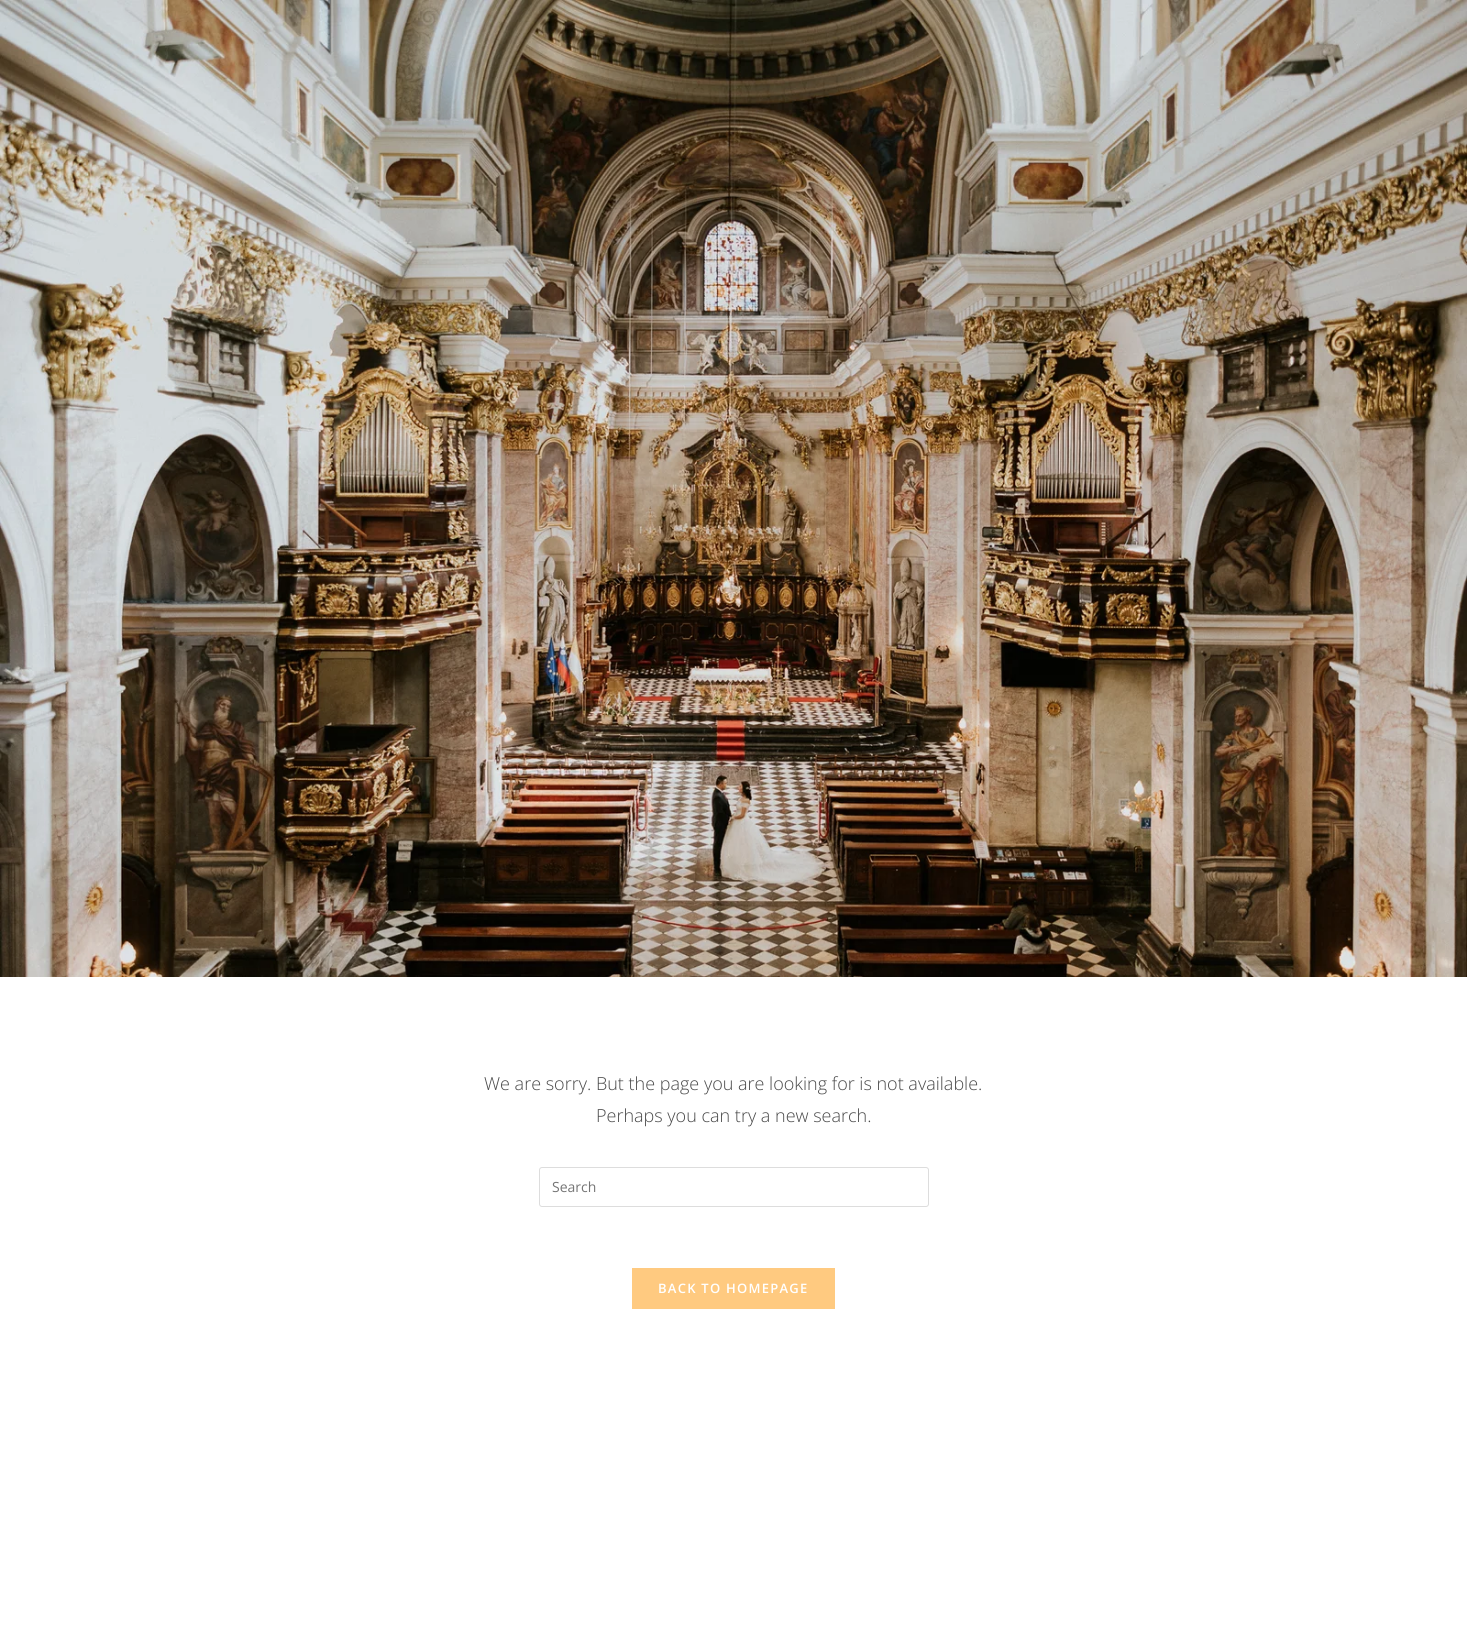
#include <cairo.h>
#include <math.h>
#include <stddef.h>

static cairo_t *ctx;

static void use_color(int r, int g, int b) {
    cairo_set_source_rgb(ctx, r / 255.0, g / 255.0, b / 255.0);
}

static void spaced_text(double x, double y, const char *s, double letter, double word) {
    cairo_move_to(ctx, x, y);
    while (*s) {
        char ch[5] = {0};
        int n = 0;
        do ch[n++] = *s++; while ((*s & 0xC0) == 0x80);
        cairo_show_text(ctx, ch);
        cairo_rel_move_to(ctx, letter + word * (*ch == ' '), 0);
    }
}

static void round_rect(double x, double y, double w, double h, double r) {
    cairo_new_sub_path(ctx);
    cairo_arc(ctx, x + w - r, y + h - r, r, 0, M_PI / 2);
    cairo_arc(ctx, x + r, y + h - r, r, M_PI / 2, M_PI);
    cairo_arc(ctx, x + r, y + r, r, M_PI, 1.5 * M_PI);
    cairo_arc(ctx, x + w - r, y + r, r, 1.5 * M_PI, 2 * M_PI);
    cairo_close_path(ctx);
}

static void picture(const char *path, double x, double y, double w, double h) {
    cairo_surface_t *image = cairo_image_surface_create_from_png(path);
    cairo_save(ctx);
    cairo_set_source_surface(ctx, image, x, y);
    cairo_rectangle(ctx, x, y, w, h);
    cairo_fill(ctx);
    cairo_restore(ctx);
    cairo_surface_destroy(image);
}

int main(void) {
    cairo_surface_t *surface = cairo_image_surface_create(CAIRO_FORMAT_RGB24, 1467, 1647);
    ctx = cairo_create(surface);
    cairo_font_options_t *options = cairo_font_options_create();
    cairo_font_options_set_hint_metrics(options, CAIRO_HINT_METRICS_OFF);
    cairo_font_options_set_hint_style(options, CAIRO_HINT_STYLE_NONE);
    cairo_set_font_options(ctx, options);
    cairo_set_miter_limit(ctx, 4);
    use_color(255, 255, 255);
    cairo_paint(ctx);
    picture("img1.png", 0, 0, 1467, 977);
    cairo_select_font_face(ctx, "Open Sans Light", CAIRO_FONT_SLANT_NORMAL, CAIRO_FONT_WEIGHT_NORMAL);
    cairo_set_font_size(ctx, 18);
    use_color(74, 74, 74);
    cairo_move_to(ctx, 484, 1090);
    cairo_show_text(ctx, "We are sorry. But the page you are looking for is not available.");
    cairo_move_to(ctx, 596, 1122);
    cairo_show_text(ctx, "Perhaps you can try a new search.");
    round_rect(539.5, 1167.5, 389, 39, 2.5);
    use_color(221, 221, 221);
    cairo_set_line_width(ctx, 1);
    cairo_stroke(ctx);
    cairo_select_font_face(ctx, "Open Sans", CAIRO_FONT_SLANT_NORMAL, CAIRO_FONT_WEIGHT_NORMAL);
    cairo_set_font_size(ctx, 14);
    use_color(117, 117, 117);
    cairo_move_to(ctx, 552, 1192);
    cairo_show_text(ctx, "Search");
    use_color(255, 202, 128);
    cairo_rectangle(ctx, 632, 1268, 203, 41);
    cairo_fill(ctx);
    cairo_select_font_face(ctx, "Open Sans SemiBold", CAIRO_FONT_SLANT_NORMAL, CAIRO_FONT_WEIGHT_NORMAL);
    cairo_set_font_size(ctx, 13);
    use_color(255, 255, 255);
    spaced_text(658, 1293, "BACK TO HOMEPAGE", 1.25, 0);
    cairo_surface_write_to_png(surface, "result.png");
    cairo_font_options_destroy(options);
    cairo_destroy(ctx);
    cairo_surface_destroy(surface);
    return 0;
}
